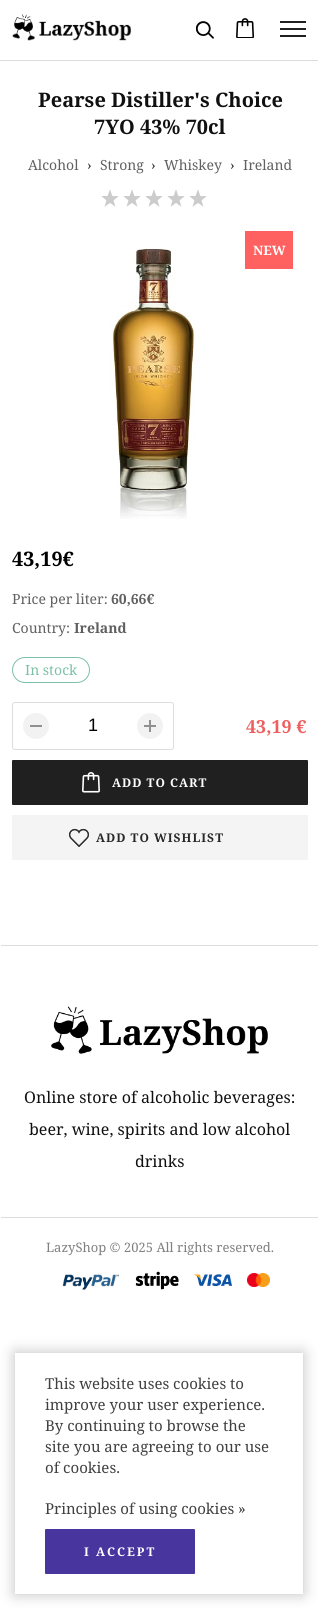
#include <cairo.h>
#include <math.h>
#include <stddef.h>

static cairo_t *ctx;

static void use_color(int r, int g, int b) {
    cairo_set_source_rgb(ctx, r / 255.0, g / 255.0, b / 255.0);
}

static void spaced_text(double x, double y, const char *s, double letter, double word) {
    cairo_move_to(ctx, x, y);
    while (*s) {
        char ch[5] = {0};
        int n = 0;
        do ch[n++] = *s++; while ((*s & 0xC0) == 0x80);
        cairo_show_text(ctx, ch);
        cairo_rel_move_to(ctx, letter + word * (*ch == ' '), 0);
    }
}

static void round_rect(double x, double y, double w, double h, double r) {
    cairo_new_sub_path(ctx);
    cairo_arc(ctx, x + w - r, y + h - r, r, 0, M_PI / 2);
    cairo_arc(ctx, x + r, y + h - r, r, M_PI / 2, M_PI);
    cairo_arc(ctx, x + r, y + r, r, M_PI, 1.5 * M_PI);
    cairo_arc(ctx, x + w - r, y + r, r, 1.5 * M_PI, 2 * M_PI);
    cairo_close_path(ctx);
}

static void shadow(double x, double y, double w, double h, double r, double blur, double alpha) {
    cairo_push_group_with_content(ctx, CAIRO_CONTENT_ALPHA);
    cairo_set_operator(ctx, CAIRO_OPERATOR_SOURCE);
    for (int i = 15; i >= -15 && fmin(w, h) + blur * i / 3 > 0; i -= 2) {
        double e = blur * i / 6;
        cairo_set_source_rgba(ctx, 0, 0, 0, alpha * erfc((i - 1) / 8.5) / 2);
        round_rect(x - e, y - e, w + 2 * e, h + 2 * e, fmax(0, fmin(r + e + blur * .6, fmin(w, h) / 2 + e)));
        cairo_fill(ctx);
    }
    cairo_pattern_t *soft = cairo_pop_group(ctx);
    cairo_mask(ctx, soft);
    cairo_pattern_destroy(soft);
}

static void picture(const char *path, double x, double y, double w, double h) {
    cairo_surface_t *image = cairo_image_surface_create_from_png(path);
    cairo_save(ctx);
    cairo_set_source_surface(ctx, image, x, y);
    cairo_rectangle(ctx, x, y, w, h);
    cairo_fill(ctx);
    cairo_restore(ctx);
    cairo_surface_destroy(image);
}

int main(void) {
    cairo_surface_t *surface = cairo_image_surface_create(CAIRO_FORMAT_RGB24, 318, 1609);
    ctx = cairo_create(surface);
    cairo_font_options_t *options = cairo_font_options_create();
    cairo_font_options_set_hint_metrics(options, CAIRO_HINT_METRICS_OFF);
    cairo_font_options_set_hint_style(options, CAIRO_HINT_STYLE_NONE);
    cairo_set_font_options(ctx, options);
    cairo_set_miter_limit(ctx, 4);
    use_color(255, 255, 255);
    cairo_paint(ctx);
    use_color(221, 221, 221);
    cairo_rectangle(ctx, 0, 60, 318, 1);
    cairo_fill(ctx);
    picture("img1.png", 12, 14, 120, 27);
    picture("img2.png", 196, 21, 18, 18);
    picture("img3.png", 236, 18, 18, 20);
    use_color(32, 32, 32);
    cairo_rectangle(ctx, 280, 21, 26, 2);
    cairo_fill(ctx);
    cairo_rectangle(ctx, 280, 28, 26, 2);
    cairo_fill(ctx);
    cairo_rectangle(ctx, 280, 35, 26, 2);
    cairo_fill(ctx);
    cairo_select_font_face(ctx, "Noto Serif", CAIRO_FONT_SLANT_NORMAL, CAIRO_FONT_WEIGHT_BOLD);
    cairo_set_font_size(ctx, 20);
    use_color(16, 16, 16);
    cairo_move_to(ctx, 38, 107);
    cairo_show_text(ctx, "Pearse Distiller's Choice");
    cairo_move_to(ctx, 94, 134);
    cairo_show_text(ctx, "7YO 43% 70cl");
    cairo_select_font_face(ctx, "Noto Serif", CAIRO_FONT_SLANT_NORMAL, CAIRO_FONT_WEIGHT_NORMAL);
    cairo_set_font_size(ctx, 14);
    use_color(96, 96, 96);
    cairo_move_to(ctx, 28, 170);
    cairo_show_text(ctx, "Alcohol");
    use_color(48, 48, 48);
    cairo_move_to(ctx, 87, 170);
    cairo_show_text(ctx, "›");
    use_color(96, 96, 96);
    cairo_move_to(ctx, 100, 170);
    cairo_show_text(ctx, "Strong");
    use_color(48, 48, 48);
    cairo_move_to(ctx, 151, 170);
    cairo_show_text(ctx, "›");
    use_color(96, 96, 96);
    cairo_move_to(ctx, 164, 170);
    cairo_show_text(ctx, "Whiskey");
    use_color(48, 48, 48);
    cairo_move_to(ctx, 230, 170);
    cairo_show_text(ctx, "›");
    use_color(96, 96, 96);
    cairo_move_to(ctx, 243, 170);
    cairo_show_text(ctx, "Ireland");
    picture("img4.png", 101, 189, 18, 18);
    picture("img4.png", 123, 189, 18, 18);
    picture("img4.png", 145, 189, 18, 18);
    picture("img4.png", 167, 189, 18, 18);
    picture("img4.png", 189, 189, 18, 18);
    picture("img5.png", 108, 247, 88, 272);
    use_color(255, 96, 96);
    cairo_rectangle(ctx, 245, 231, 48, 38);
    cairo_fill(ctx);
    cairo_select_font_face(ctx, "Noto Serif", CAIRO_FONT_SLANT_NORMAL, CAIRO_FONT_WEIGHT_BOLD);
    cairo_set_font_size(ctx, 13);
    use_color(255, 255, 255);
    cairo_move_to(ctx, 253, 255);
    cairo_show_text(ctx, "NEW");
    cairo_set_font_size(ctx, 20);
    use_color(0, 0, 0);
    cairo_move_to(ctx, 12, 566);
    cairo_show_text(ctx, "43,19€");
    cairo_select_font_face(ctx, "Noto Serif", CAIRO_FONT_SLANT_NORMAL, CAIRO_FONT_WEIGHT_NORMAL);
    cairo_set_font_size(ctx, 14);
    use_color(96, 96, 96);
    cairo_move_to(ctx, 12, 604);
    cairo_show_text(ctx, "Price per liter:");
    cairo_select_font_face(ctx, "Noto Serif", CAIRO_FONT_SLANT_NORMAL, CAIRO_FONT_WEIGHT_BOLD);
    cairo_move_to(ctx, 111, 604);
    cairo_show_text(ctx, "60,66€");
    cairo_select_font_face(ctx, "Noto Serif", CAIRO_FONT_SLANT_NORMAL, CAIRO_FONT_WEIGHT_NORMAL);
    cairo_move_to(ctx, 12, 633);
    cairo_show_text(ctx, "Country:");
    cairo_select_font_face(ctx, "Noto Serif", CAIRO_FONT_SLANT_NORMAL, CAIRO_FONT_WEIGHT_BOLD);
    cairo_move_to(ctx, 74, 633);
    cairo_show_text(ctx, "Ireland");
    round_rect(12.5, 657.5, 77, 25, 12.5);
    use_color(124, 192, 166);
    cairo_set_line_width(ctx, 1);
    cairo_stroke(ctx);
    cairo_select_font_face(ctx, "Noto Serif", CAIRO_FONT_SLANT_NORMAL, CAIRO_FONT_WEIGHT_NORMAL);
    cairo_move_to(ctx, 25, 675);
    cairo_show_text(ctx, "In stock");
    round_rect(12.5, 702.5, 161, 47, 2.5);
    use_color(221, 221, 221);
    cairo_stroke(ctx);
    use_color(242, 242, 242);
    cairo_arc(ctx, 36, 726, 13, 0, 2 * M_PI);
    cairo_fill(ctx);
    use_color(144, 144, 144);
    cairo_rectangle(ctx, 30, 725, 12, 2);
    cairo_fill(ctx);
    cairo_select_font_face(ctx, "Liberation Sans", CAIRO_FONT_SLANT_NORMAL, CAIRO_FONT_WEIGHT_NORMAL);
    cairo_set_font_size(ctx, 18);
    use_color(0, 0, 0);
    cairo_move_to(ctx, 88, 731);
    cairo_show_text(ctx, "1");
    use_color(242, 242, 242);
    cairo_new_path(ctx);
    cairo_arc(ctx, 150, 726, 13, 0, 2 * M_PI);
    cairo_fill(ctx);
    use_color(144, 144, 144);
    cairo_rectangle(ctx, 144, 725, 12, 2);
    cairo_fill(ctx);
    cairo_rectangle(ctx, 149, 720, 2, 12);
    cairo_fill(ctx);
    cairo_select_font_face(ctx, "Noto Serif", CAIRO_FONT_SLANT_NORMAL, CAIRO_FONT_WEIGHT_BOLD);
    use_color(238, 96, 96);
    cairo_move_to(ctx, 246, 733);
    cairo_show_text(ctx, "43,19 €");
    use_color(32, 32, 32);
    round_rect(12, 760, 296, 45, 1);
    cairo_fill(ctx);
    picture("img6.png", 82, 772, 18, 21);
    cairo_set_font_size(ctx, 12);
    use_color(255, 255, 255);
    spaced_text(112, 787, "ADD TO CART", 1, 0);
    use_color(244, 244, 244);
    round_rect(12, 815, 296, 45, 1);
    cairo_fill(ctx);
    picture("img7.png", 68, 828, 22, 19);
    use_color(40, 40, 40);
    spaced_text(96, 842, "ADD TO WISHLIST", 1, 0);
    use_color(221, 221, 221);
    cairo_rectangle(ctx, 0, 945, 318, 1);
    cairo_fill(ctx);
    use_color(255, 255, 255);
    cairo_rectangle(ctx, 0, 945, 1, 1);
    cairo_fill(ctx);
    picture("img8.png", 51, 1006, 217, 48);
    cairo_select_font_face(ctx, "Noto Serif", CAIRO_FONT_SLANT_NORMAL, CAIRO_FONT_WEIGHT_NORMAL);
    cairo_set_font_size(ctx, 16);
    use_color(16, 16, 16);
    cairo_move_to(ctx, 24, 1103);
    cairo_show_text(ctx, "Online store of alcoholic beverages:");
    cairo_move_to(ctx, 29, 1135);
    cairo_show_text(ctx, "beer, wine, spirits and low alcohol");
    cairo_move_to(ctx, 135, 1167);
    cairo_show_text(ctx, "drinks");
    use_color(221, 221, 221);
    cairo_rectangle(ctx, 1, 1217, 317, 1);
    cairo_fill(ctx);
    cairo_set_font_size(ctx, 13);
    use_color(128, 128, 130);
    cairo_move_to(ctx, 46, 1252);
    cairo_show_text(ctx, "LazyShop © 2025 All rights reserved.");
    picture("img9.png", 62, 1274, 57, 16);
    picture("img10.png", 135, 1271, 44, 19);
    picture("img11.png", 193, 1274, 40, 13);
    picture("img12.png", 247, 1273, 23, 14);
    cairo_save(ctx);
    cairo_set_fill_rule(ctx, CAIRO_FILL_RULE_EVEN_ODD);
    cairo_new_path(ctx);
    cairo_move_to(ctx, 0, 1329);
    cairo_line_to(ctx, 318, 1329);
    cairo_line_to(ctx, 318, 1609);
    cairo_line_to(ctx, 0, 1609);
    cairo_close_path(ctx);
    cairo_move_to(ctx, 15, 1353);
    cairo_line_to(ctx, 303, 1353);
    cairo_line_to(ctx, 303, 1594);
    cairo_line_to(ctx, 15, 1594);
    cairo_close_path(ctx);
    cairo_clip(ctx);
    use_color(0, 0, 0);
    shadow(15, 1353, 288, 241, 0, 7.5, 0.25);
    cairo_restore(ctx);
    cairo_set_font_size(ctx, 15);
    use_color(64, 64, 64);
    cairo_move_to(ctx, 45, 1389);
    cairo_show_text(ctx, "This website uses cookies to");
    cairo_move_to(ctx, 45, 1410);
    cairo_show_text(ctx, "improve your user experience.");
    cairo_move_to(ctx, 45, 1431);
    cairo_show_text(ctx, "By continuing to browse the");
    cairo_move_to(ctx, 45, 1452);
    cairo_show_text(ctx, "site you are agreeing to our use");
    cairo_move_to(ctx, 45, 1473);
    cairo_show_text(ctx, "of cookies.");
    cairo_move_to(ctx, 45, 1514);
    cairo_show_text(ctx, "Principles of using cookies »");
    use_color(73, 53, 158);
    round_rect(45, 1529, 150, 45, 1);
    cairo_fill(ctx);
    cairo_select_font_face(ctx, "Noto Serif", CAIRO_FONT_SLANT_NORMAL, CAIRO_FONT_WEIGHT_BOLD);
    cairo_set_font_size(ctx, 12);
    use_color(255, 255, 255);
    spaced_text(84, 1556, "I ACCEPT", 2, 0);
    cairo_surface_write_to_png(surface, "result.png");
    cairo_font_options_destroy(options);
    cairo_destroy(ctx);
    cairo_surface_destroy(surface);
    return 0;
}
